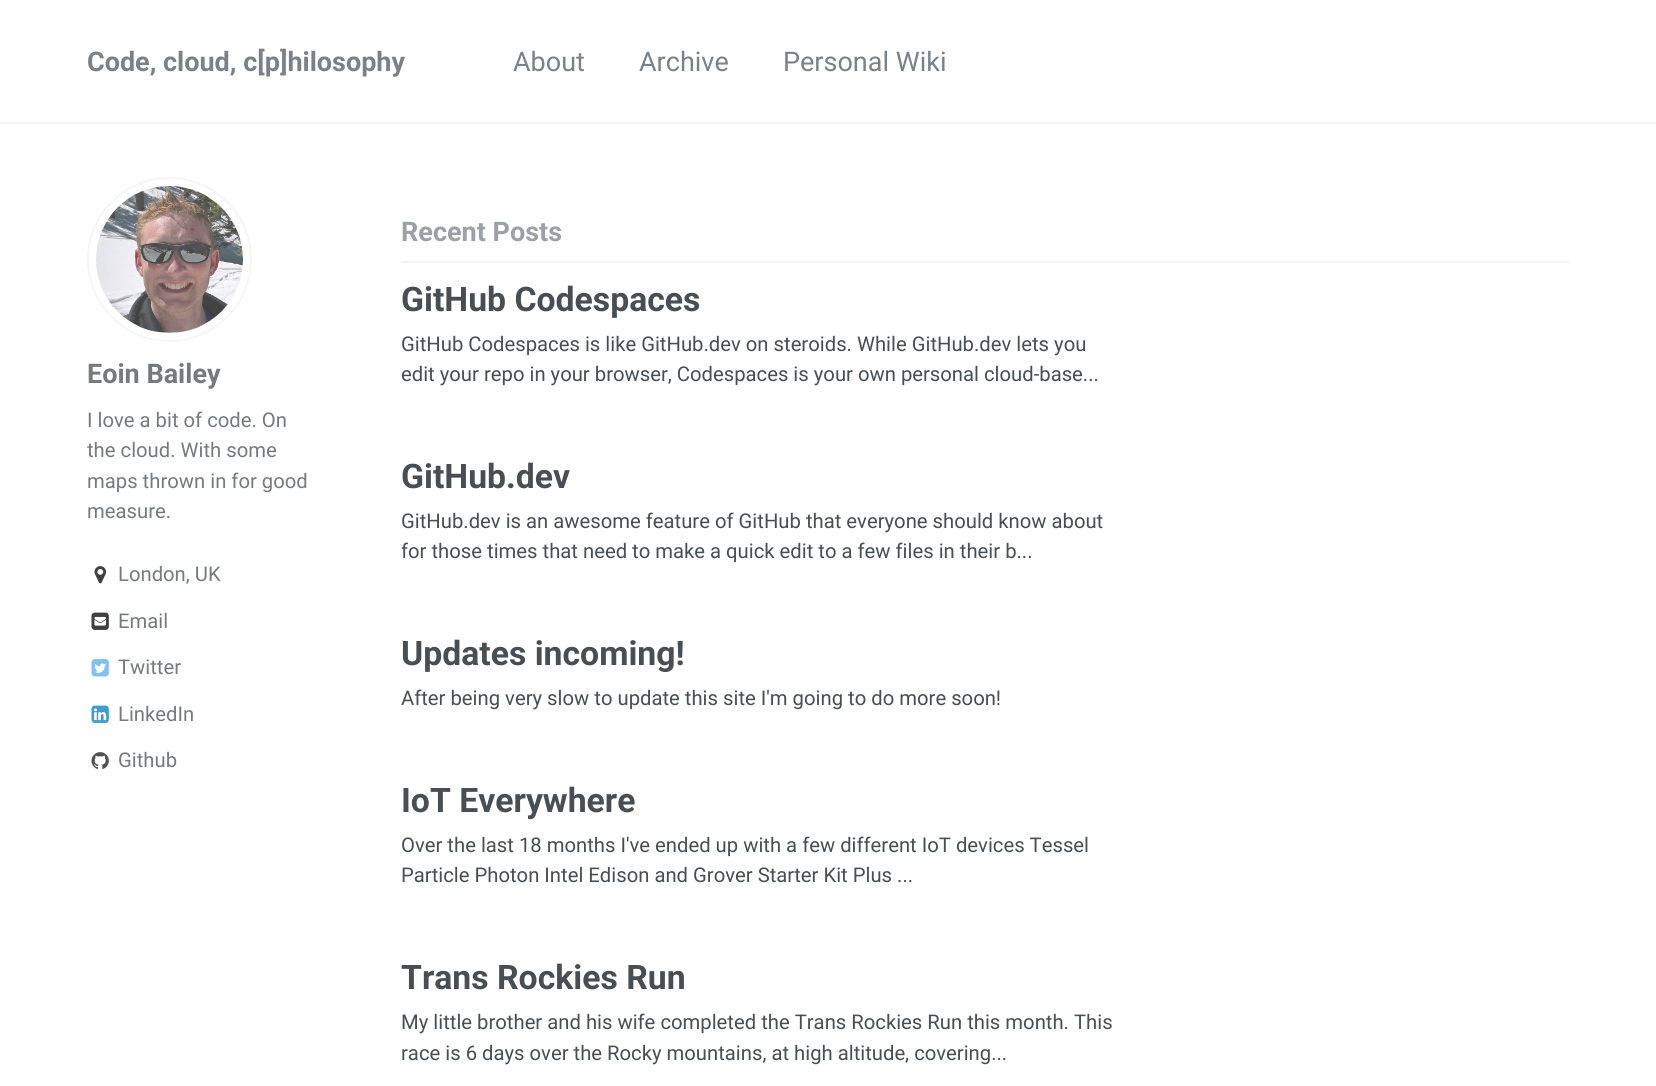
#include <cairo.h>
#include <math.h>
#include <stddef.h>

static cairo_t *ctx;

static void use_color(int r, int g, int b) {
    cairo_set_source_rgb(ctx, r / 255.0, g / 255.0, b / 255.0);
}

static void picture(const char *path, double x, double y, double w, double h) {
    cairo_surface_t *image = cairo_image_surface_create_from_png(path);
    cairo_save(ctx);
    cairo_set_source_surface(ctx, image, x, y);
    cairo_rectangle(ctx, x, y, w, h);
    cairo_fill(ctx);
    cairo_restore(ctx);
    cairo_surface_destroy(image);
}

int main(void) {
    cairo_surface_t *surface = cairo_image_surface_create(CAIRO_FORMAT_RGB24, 1656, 1086);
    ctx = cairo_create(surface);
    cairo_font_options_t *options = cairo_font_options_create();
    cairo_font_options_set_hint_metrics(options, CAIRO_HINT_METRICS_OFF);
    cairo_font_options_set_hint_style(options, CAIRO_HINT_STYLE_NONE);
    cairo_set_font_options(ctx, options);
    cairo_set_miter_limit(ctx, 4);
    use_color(255, 255, 255);
    cairo_paint(ctx);
    use_color(242, 243, 243);
    cairo_rectangle(ctx, 0, 122, 1656, 2);
    cairo_fill(ctx);
    cairo_select_font_face(ctx, "Roboto", CAIRO_FONT_SLANT_NORMAL, CAIRO_FONT_WEIGHT_BOLD);
    cairo_set_font_size(ctx, 27);
    use_color(122, 130, 136);
    cairo_move_to(ctx, 87, 71);
    cairo_show_text(ctx, "Code, cloud, c[p]hilosophy");
    cairo_select_font_face(ctx, "Roboto", CAIRO_FONT_SLANT_NORMAL, CAIRO_FONT_WEIGHT_NORMAL);
    cairo_move_to(ctx, 513, 71);
    cairo_show_text(ctx, "About");
    cairo_move_to(ctx, 639, 71);
    cairo_show_text(ctx, "Archive");
    cairo_move_to(ctx, 783, 71);
    cairo_show_text(ctx, "Personal Wiki");
    cairo_new_path(ctx);
    cairo_arc(ctx, 169.5, 259.5, 81.5, 0, 2 * M_PI);
    use_color(245, 246, 246);
    cairo_stroke(ctx);
    picture("img1.png", 96, 186, 147, 147);
    cairo_select_font_face(ctx, "Roboto", CAIRO_FONT_SLANT_NORMAL, CAIRO_FONT_WEIGHT_BOLD);
    use_color(119, 122, 125);
    cairo_move_to(ctx, 87, 383);
    cairo_show_text(ctx, "Eoin Bailey");
    cairo_select_font_face(ctx, "Roboto", CAIRO_FONT_SLANT_NORMAL, CAIRO_FONT_WEIGHT_NORMAL);
    cairo_set_font_size(ctx, 20.25);
    cairo_move_to(ctx, 87, 427);
    cairo_show_text(ctx, "I love a bit of code. On");
    cairo_move_to(ctx, 87, 457);
    cairo_show_text(ctx, "the cloud. With some");
    cairo_move_to(ctx, 87, 488);
    cairo_show_text(ctx, "maps thrown in for good");
    cairo_move_to(ctx, 87, 518);
    cairo_show_text(ctx, "measure.");
    picture("img2.png", 94, 566, 13, 18);
    cairo_move_to(ctx, 118, 581);
    cairo_show_text(ctx, "London, UK");
    picture("img3.png", 91, 612, 18, 18);
    cairo_move_to(ctx, 118, 628);
    cairo_show_text(ctx, "Email");
    picture("img4.png", 91, 659, 18, 18);
    cairo_move_to(ctx, 118, 674);
    cairo_show_text(ctx, "Twitter");
    picture("img5.png", 91, 705, 18, 18);
    cairo_move_to(ctx, 118, 721);
    cairo_show_text(ctx, "LinkedIn");
    picture("img6.png", 91, 752, 18, 17);
    cairo_move_to(ctx, 118, 767);
    cairo_show_text(ctx, "Github");
    use_color(242, 243, 243);
    cairo_rectangle(ctx, 401, 261, 1168, 2);
    cairo_fill(ctx);
    cairo_select_font_face(ctx, "Roboto", CAIRO_FONT_SLANT_NORMAL, CAIRO_FONT_WEIGHT_BOLD);
    cairo_set_font_size(ctx, 27);
    use_color(155, 161, 166);
    cairo_move_to(ctx, 401, 241);
    cairo_show_text(ctx, "Recent Posts");
    cairo_set_font_size(ctx, 33.75);
    use_color(73, 78, 82);
    cairo_move_to(ctx, 401, 311);
    cairo_show_text(ctx, "GitHub Codespaces");
    cairo_select_font_face(ctx, "Roboto", CAIRO_FONT_SLANT_NORMAL, CAIRO_FONT_WEIGHT_NORMAL);
    cairo_set_font_size(ctx, 20.25);
    cairo_move_to(ctx, 401, 351);
    cairo_show_text(ctx, "GitHub Codespaces is like GitHub.dev on steroids. While GitHub.dev lets you");
    cairo_move_to(ctx, 401, 381);
    cairo_show_text(ctx, "edit your repo in your browser, Codespaces is your own personal cloud-base...");
    cairo_select_font_face(ctx, "Roboto", CAIRO_FONT_SLANT_NORMAL, CAIRO_FONT_WEIGHT_BOLD);
    cairo_set_font_size(ctx, 33.75);
    cairo_move_to(ctx, 401, 488);
    cairo_show_text(ctx, "GitHub.dev");
    cairo_select_font_face(ctx, "Roboto", CAIRO_FONT_SLANT_NORMAL, CAIRO_FONT_WEIGHT_NORMAL);
    cairo_set_font_size(ctx, 20.25);
    cairo_move_to(ctx, 401, 528);
    cairo_show_text(ctx, "GitHub.dev is an awesome feature of GitHub that everyone should know about");
    cairo_move_to(ctx, 401, 558);
    cairo_show_text(ctx, "for those times that need to make a quick edit to a few files in their b...");
    cairo_select_font_face(ctx, "Roboto", CAIRO_FONT_SLANT_NORMAL, CAIRO_FONT_WEIGHT_BOLD);
    cairo_set_font_size(ctx, 33.75);
    cairo_move_to(ctx, 401, 665);
    cairo_show_text(ctx, "Updates incoming!");
    cairo_select_font_face(ctx, "Roboto", CAIRO_FONT_SLANT_NORMAL, CAIRO_FONT_WEIGHT_NORMAL);
    cairo_set_font_size(ctx, 20.25);
    cairo_move_to(ctx, 401, 705);
    cairo_show_text(ctx, "After being very slow to update this site I'm going to do more soon!");
    cairo_select_font_face(ctx, "Roboto", CAIRO_FONT_SLANT_NORMAL, CAIRO_FONT_WEIGHT_BOLD);
    cairo_set_font_size(ctx, 33.75);
    cairo_move_to(ctx, 401, 812);
    cairo_show_text(ctx, "IoT Everywhere");
    cairo_select_font_face(ctx, "Roboto", CAIRO_FONT_SLANT_NORMAL, CAIRO_FONT_WEIGHT_NORMAL);
    cairo_set_font_size(ctx, 20.25);
    cairo_move_to(ctx, 401, 852);
    cairo_show_text(ctx, "Over the last 18 months I've ended up with a few different IoT devices Tessel");
    cairo_move_to(ctx, 401, 882);
    cairo_show_text(ctx, "Particle Photon Intel Edison and Grover Starter Kit Plus ...");
    cairo_select_font_face(ctx, "Roboto", CAIRO_FONT_SLANT_NORMAL, CAIRO_FONT_WEIGHT_BOLD);
    cairo_set_font_size(ctx, 33.75);
    cairo_move_to(ctx, 401, 989);
    cairo_show_text(ctx, "Trans Rockies Run");
    cairo_select_font_face(ctx, "Roboto", CAIRO_FONT_SLANT_NORMAL, CAIRO_FONT_WEIGHT_NORMAL);
    cairo_set_font_size(ctx, 20.25);
    cairo_move_to(ctx, 401, 1029);
    cairo_show_text(ctx, "My little brother and his wife completed the Trans Rockies Run this month. This");
    cairo_move_to(ctx, 401, 1060);
    cairo_show_text(ctx, "race is 6 days over the Rocky mountains, at high altitude, covering...");
    cairo_surface_write_to_png(surface, "result.png");
    cairo_font_options_destroy(options);
    cairo_destroy(ctx);
    cairo_surface_destroy(surface);
    return 0;
}
